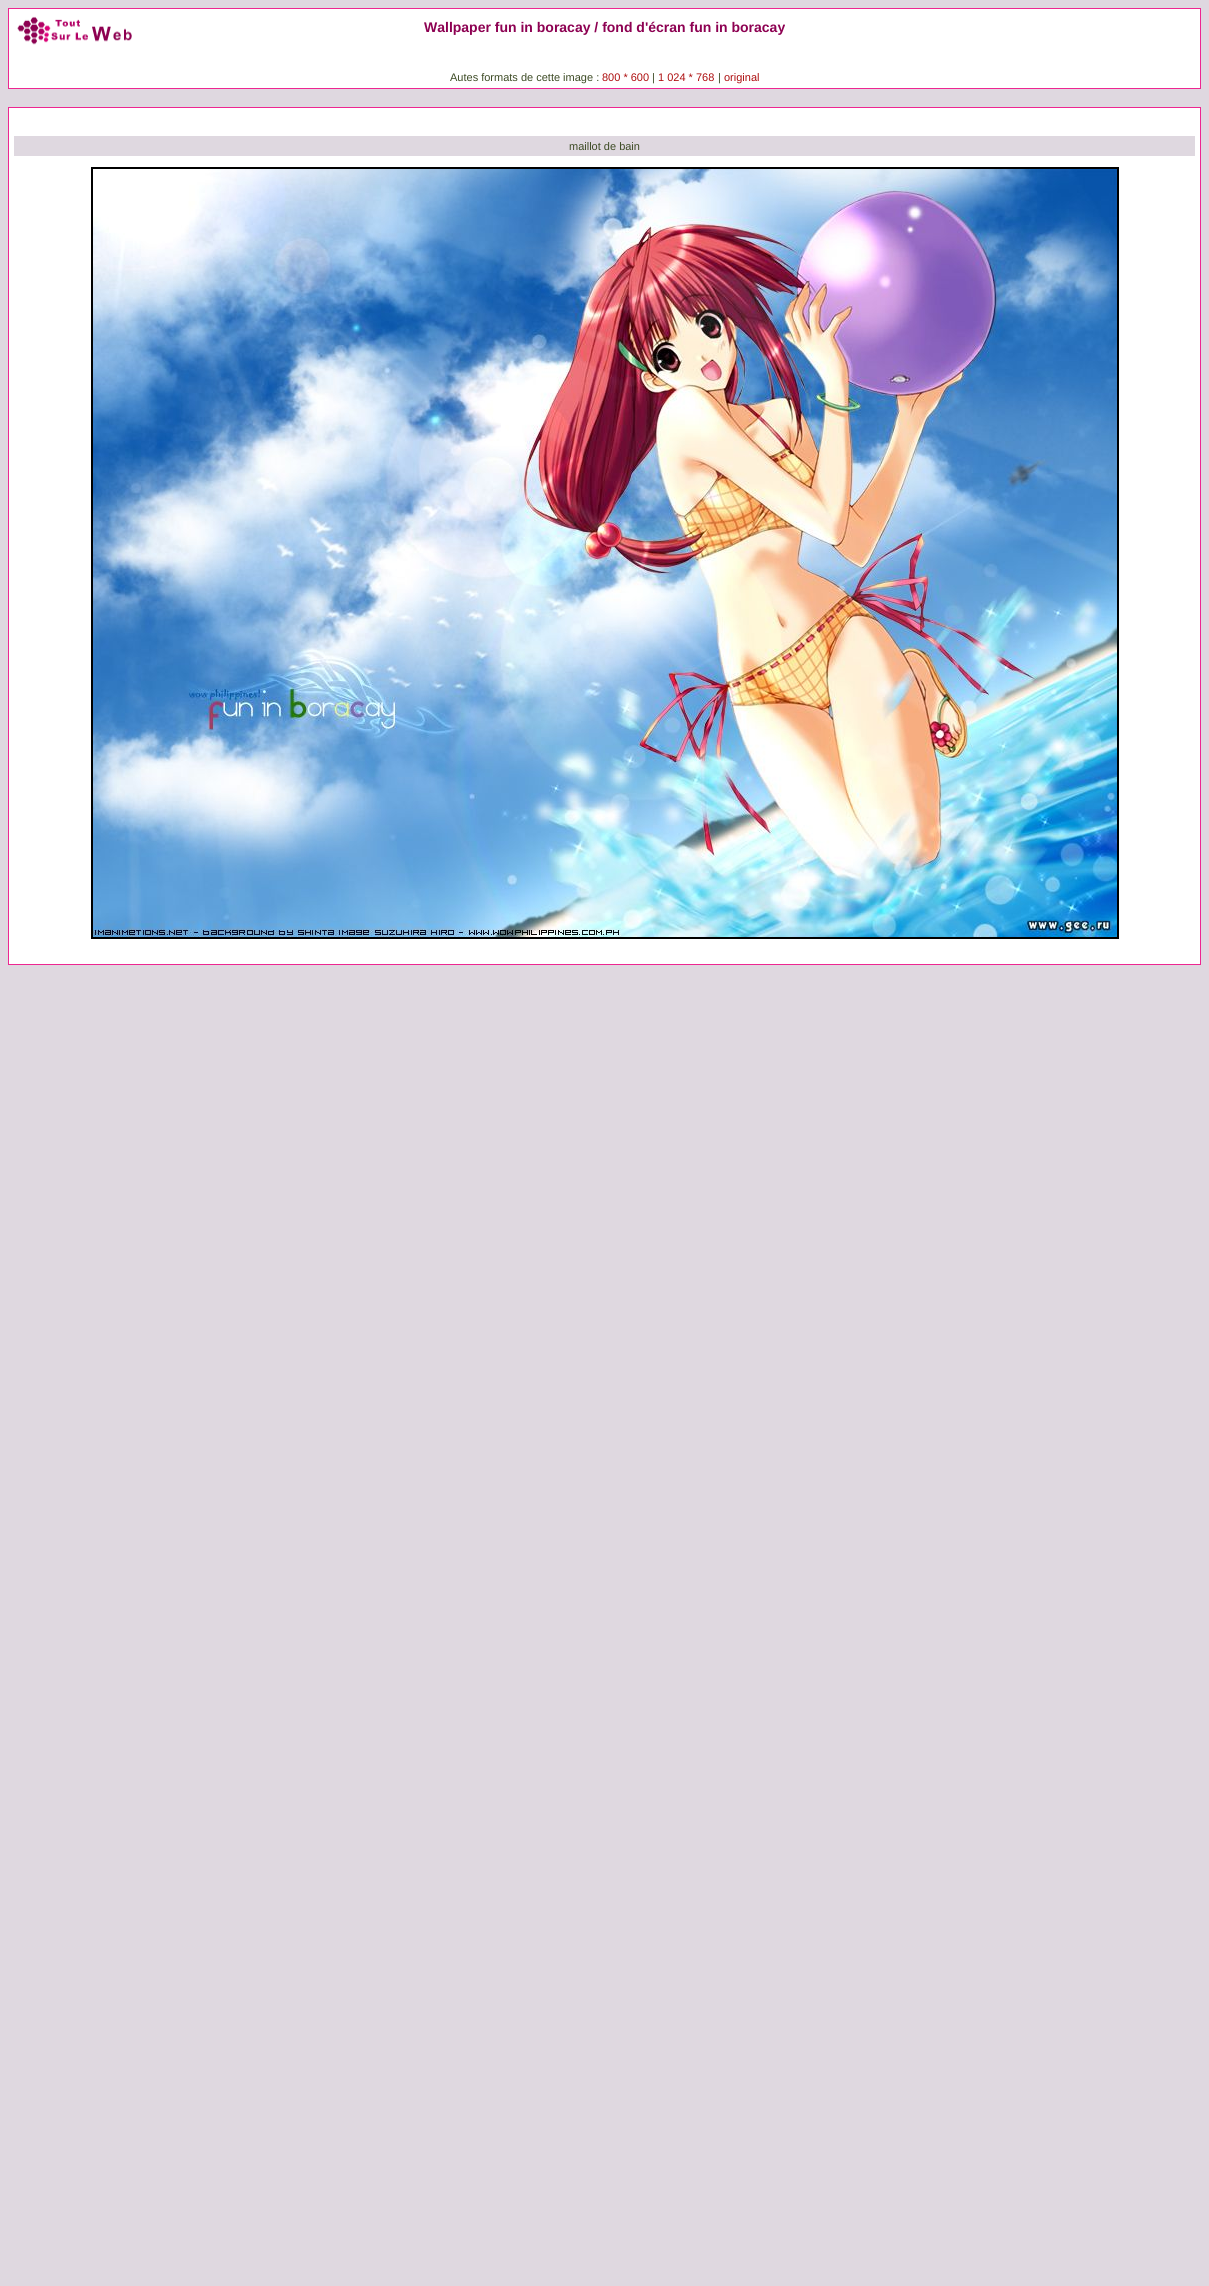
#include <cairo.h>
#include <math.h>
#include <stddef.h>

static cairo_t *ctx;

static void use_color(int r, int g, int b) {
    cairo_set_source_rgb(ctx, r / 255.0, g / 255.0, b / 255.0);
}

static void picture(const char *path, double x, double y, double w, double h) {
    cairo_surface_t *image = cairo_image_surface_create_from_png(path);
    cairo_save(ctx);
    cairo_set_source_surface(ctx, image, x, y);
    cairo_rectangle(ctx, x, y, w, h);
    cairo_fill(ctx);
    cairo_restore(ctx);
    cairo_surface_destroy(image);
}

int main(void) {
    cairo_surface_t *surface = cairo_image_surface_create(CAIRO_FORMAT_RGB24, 1209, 2286);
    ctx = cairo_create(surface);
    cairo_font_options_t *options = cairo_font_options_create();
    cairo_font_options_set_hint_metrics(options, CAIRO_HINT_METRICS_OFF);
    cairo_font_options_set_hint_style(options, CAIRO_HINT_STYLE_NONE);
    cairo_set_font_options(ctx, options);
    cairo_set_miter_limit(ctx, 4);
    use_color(223, 216, 224);
    cairo_paint(ctx);
    cairo_rectangle(ctx, 8.5, 8.5, 1192, 80);
    use_color(238, 38, 145);
    cairo_set_line_width(ctx, 1);
    cairo_stroke(ctx);
    use_color(255, 255, 255);
    cairo_rectangle(ctx, 9, 9, 1191, 79);
    cairo_fill(ctx);
    picture("img1.png", 17, 16, 115, 29);
    cairo_select_font_face(ctx, "Liberation Sans", CAIRO_FONT_SLANT_NORMAL, CAIRO_FONT_WEIGHT_BOLD);
    cairo_set_font_size(ctx, 14);
    use_color(141, 1, 82);
    cairo_move_to(ctx, 424, 32);
    cairo_show_text(ctx, "Wallpaper fun in boracay / fond d'écran fun in boracay");
    cairo_select_font_face(ctx, "Liberation Sans", CAIRO_FONT_SLANT_NORMAL, CAIRO_FONT_WEIGHT_NORMAL);
    cairo_set_font_size(ctx, 11);
    use_color(61, 75, 37);
    cairo_move_to(ctx, 450, 81);
    cairo_show_text(ctx, "Autes formats de cette image :");
    use_color(173, 14, 15);
    cairo_move_to(ctx, 602, 81);
    cairo_show_text(ctx, "800 * 600");
    use_color(61, 75, 37);
    cairo_move_to(ctx, 652, 81);
    cairo_show_text(ctx, "|");
    use_color(173, 14, 15);
    cairo_move_to(ctx, 658, 81);
    cairo_show_text(ctx, "1 024 * 768");
    use_color(61, 75, 37);
    cairo_move_to(ctx, 718, 81);
    cairo_show_text(ctx, "|");
    use_color(173, 14, 15);
    cairo_move_to(ctx, 724, 81);
    cairo_show_text(ctx, "original");
    cairo_rectangle(ctx, 8.5, 107.5, 1192, 857);
    use_color(238, 38, 145);
    cairo_stroke(ctx);
    use_color(255, 255, 255);
    cairo_rectangle(ctx, 9, 108, 1191, 856);
    cairo_fill(ctx);
    use_color(223, 216, 224);
    cairo_rectangle(ctx, 14, 136, 1181, 20);
    cairo_fill(ctx);
    use_color(61, 75, 37);
    cairo_move_to(ctx, 569, 150);
    cairo_show_text(ctx, "maillot de bain");
    use_color(0, 0, 0);
    cairo_rectangle(ctx, 91, 167, 1028, 772);
    cairo_fill(ctx);
    picture("img2.png", 93, 169, 1024, 768);
    cairo_surface_write_to_png(surface, "result.png");
    cairo_font_options_destroy(options);
    cairo_destroy(ctx);
    cairo_surface_destroy(surface);
    return 0;
}
